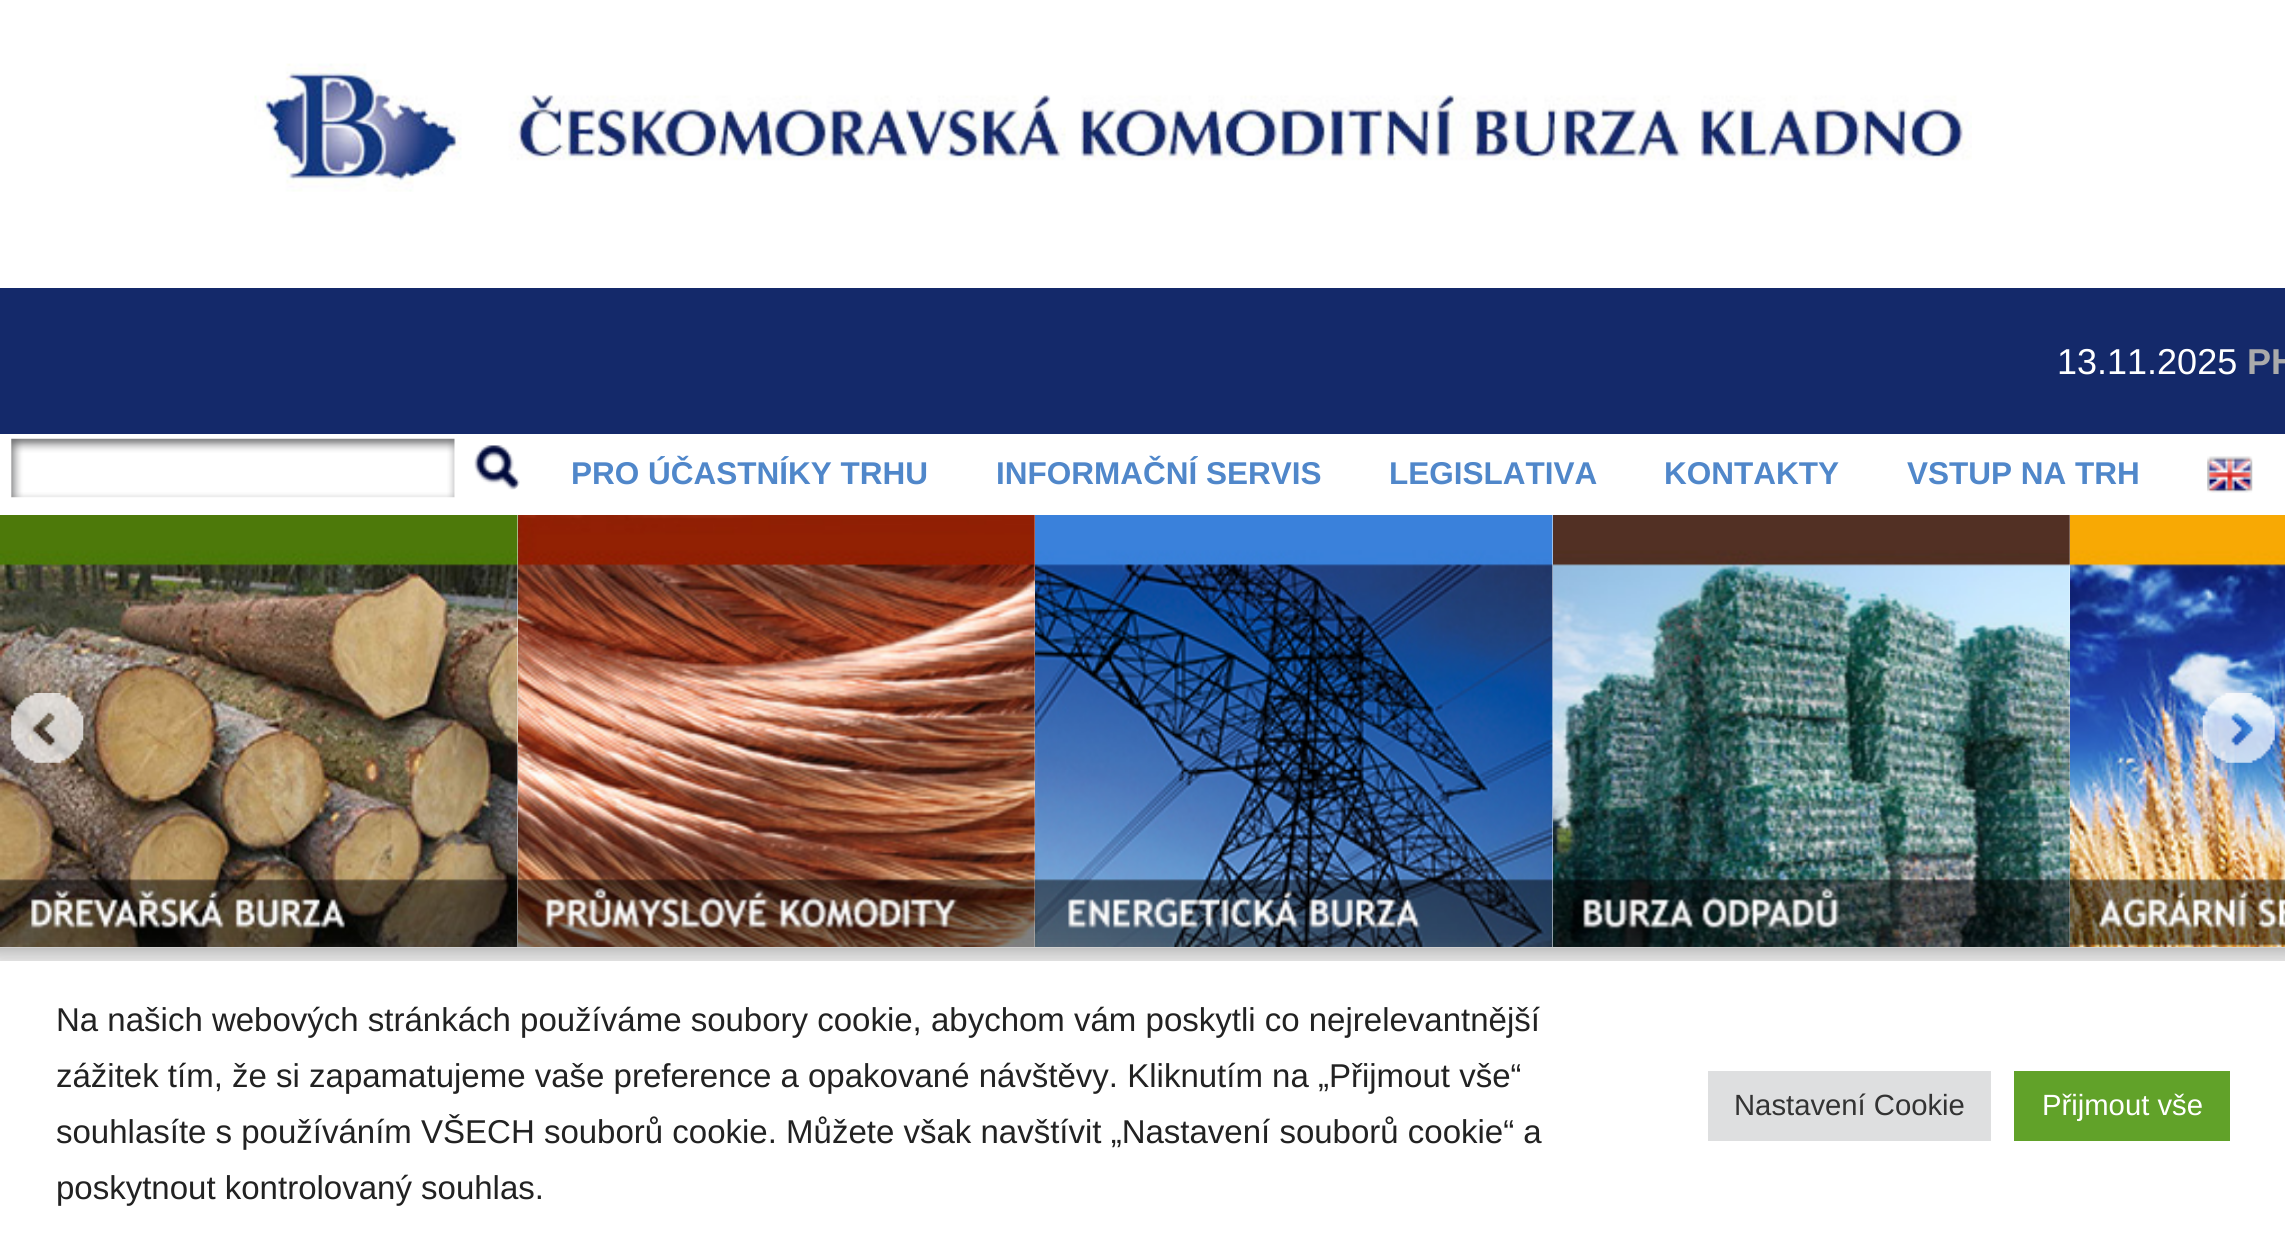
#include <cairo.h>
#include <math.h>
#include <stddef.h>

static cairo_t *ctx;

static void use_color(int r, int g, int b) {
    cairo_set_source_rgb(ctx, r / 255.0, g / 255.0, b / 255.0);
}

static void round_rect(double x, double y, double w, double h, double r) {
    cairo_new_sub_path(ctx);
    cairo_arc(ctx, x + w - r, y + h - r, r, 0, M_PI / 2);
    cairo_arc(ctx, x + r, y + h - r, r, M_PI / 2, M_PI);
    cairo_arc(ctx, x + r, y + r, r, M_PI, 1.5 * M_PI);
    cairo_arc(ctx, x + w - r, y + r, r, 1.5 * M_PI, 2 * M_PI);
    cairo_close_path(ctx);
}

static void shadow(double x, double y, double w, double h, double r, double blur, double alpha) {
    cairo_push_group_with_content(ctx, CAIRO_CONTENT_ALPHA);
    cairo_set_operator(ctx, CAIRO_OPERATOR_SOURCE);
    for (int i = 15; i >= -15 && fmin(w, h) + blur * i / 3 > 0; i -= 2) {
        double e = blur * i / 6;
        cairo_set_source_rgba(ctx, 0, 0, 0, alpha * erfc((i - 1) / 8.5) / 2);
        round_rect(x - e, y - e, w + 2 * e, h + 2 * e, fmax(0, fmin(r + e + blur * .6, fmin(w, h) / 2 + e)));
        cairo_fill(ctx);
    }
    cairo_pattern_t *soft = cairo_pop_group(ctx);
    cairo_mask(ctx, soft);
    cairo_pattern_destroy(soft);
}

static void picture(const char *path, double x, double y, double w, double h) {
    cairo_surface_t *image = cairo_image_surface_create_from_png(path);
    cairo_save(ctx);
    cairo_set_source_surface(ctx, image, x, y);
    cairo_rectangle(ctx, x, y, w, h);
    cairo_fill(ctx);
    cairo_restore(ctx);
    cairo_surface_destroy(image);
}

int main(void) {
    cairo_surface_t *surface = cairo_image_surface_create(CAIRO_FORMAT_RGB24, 2285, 1247);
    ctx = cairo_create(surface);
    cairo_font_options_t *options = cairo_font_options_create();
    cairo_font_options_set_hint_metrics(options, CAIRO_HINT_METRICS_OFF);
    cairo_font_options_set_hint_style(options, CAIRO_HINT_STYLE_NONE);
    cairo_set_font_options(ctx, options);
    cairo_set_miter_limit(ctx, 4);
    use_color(255, 255, 255);
    cairo_paint(ctx);
    picture("img1.png", 254, 63, 1718, 129);
    use_color(20, 41, 106);
    cairo_rectangle(ctx, 0, 288, 2285, 146);
    cairo_fill(ctx);
    cairo_select_font_face(ctx, "Arimo", CAIRO_FONT_SLANT_NORMAL, CAIRO_FONT_WEIGHT_NORMAL);
    cairo_set_font_size(ctx, 36);
    use_color(255, 255, 255);
    cairo_move_to(ctx, 2057, 374);
    cairo_show_text(ctx, "13.11.2025");
    cairo_select_font_face(ctx, "Arimo", CAIRO_FONT_SLANT_NORMAL, CAIRO_FONT_WEIGHT_BOLD);
    use_color(170, 170, 170);
    cairo_move_to(ctx, 2247, 374);
    cairo_show_text(ctx, "PH");
    picture("img2.png", 11, 438, 444, 60);
    picture("img3.png", 474, 445, 46, 45);
    cairo_set_font_size(ctx, 31.5);
    use_color(80, 135, 202);
    cairo_move_to(ctx, 571, 484);
    cairo_show_text(ctx, "PRO ÚČASTNÍKY TRHU");
    cairo_move_to(ctx, 996, 484);
    cairo_show_text(ctx, "INFORMAČNÍ SERVIS");
    cairo_move_to(ctx, 1389, 484);
    cairo_show_text(ctx, "LEGISLATIVA");
    cairo_move_to(ctx, 1664, 484);
    cairo_show_text(ctx, "KONTAKTY");
    cairo_move_to(ctx, 1907, 484);
    cairo_show_text(ctx, "VSTUP NA TRH");
    picture("img4.png", 2207, 456, 46, 37);
    picture("img5.png", 0, 515, 518, 432);
    picture("img6.png", 518, 515, 517, 432);
    picture("img7.png", 1035, 515, 518, 432);
    picture("img8.png", 1553, 515, 517, 432);
    picture("img9.png", 2070, 515, 215, 432);
    picture("img10.png", 11, 693, 73, 70);
    picture("img11.png", 2202, 693, 73, 70);
    picture("img12.png", 0, 947, 2285, 14);
    use_color(172, 171, 171);
    shadow(0, 959, 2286, 288, 0, 11, 0.3);
    use_color(255, 255, 255);
    cairo_rectangle(ctx, 0, 961, 2285, 286);
    cairo_fill(ctx);
    cairo_select_font_face(ctx, "Arimo", CAIRO_FONT_SLANT_NORMAL, CAIRO_FONT_WEIGHT_NORMAL);
    cairo_set_font_size(ctx, 33);
    use_color(34, 34, 34);
    cairo_move_to(ctx, 56, 1031);
    cairo_show_text(ctx, "Na našich webových stránkách používáme soubory cookie, abychom vám poskytli co nejrelevantnější");
    cairo_move_to(ctx, 56, 1087);
    cairo_show_text(ctx, "zážitek tím, že si zapamatujeme vaše preference a opakované návštěvy. Kliknutím na „Přijmout vše“");
    cairo_move_to(ctx, 56, 1143);
    cairo_show_text(ctx, "souhlasíte s používáním VŠECH souborů cookie. Můžete však navštívit „Nastavení souborů cookie“ a");
    cairo_move_to(ctx, 56, 1199);
    cairo_show_text(ctx, "poskytnout kontrolovaný souhlas.");
    use_color(222, 223, 224);
    cairo_rectangle(ctx, 1708, 1071, 283, 70);
    cairo_fill(ctx);
    cairo_set_font_size(ctx, 29.25);
    use_color(51, 51, 51);
    cairo_move_to(ctx, 1734, 1115);
    cairo_show_text(ctx, "Nastavení Cookie");
    use_color(97, 162, 41);
    cairo_rectangle(ctx, 2014, 1071, 216, 70);
    cairo_fill(ctx);
    use_color(255, 255, 255);
    cairo_move_to(ctx, 2042, 1115);
    cairo_show_text(ctx, "Přijmout vše");
    cairo_surface_write_to_png(surface, "result.png");
    cairo_font_options_destroy(options);
    cairo_destroy(ctx);
    cairo_surface_destroy(surface);
    return 0;
}
